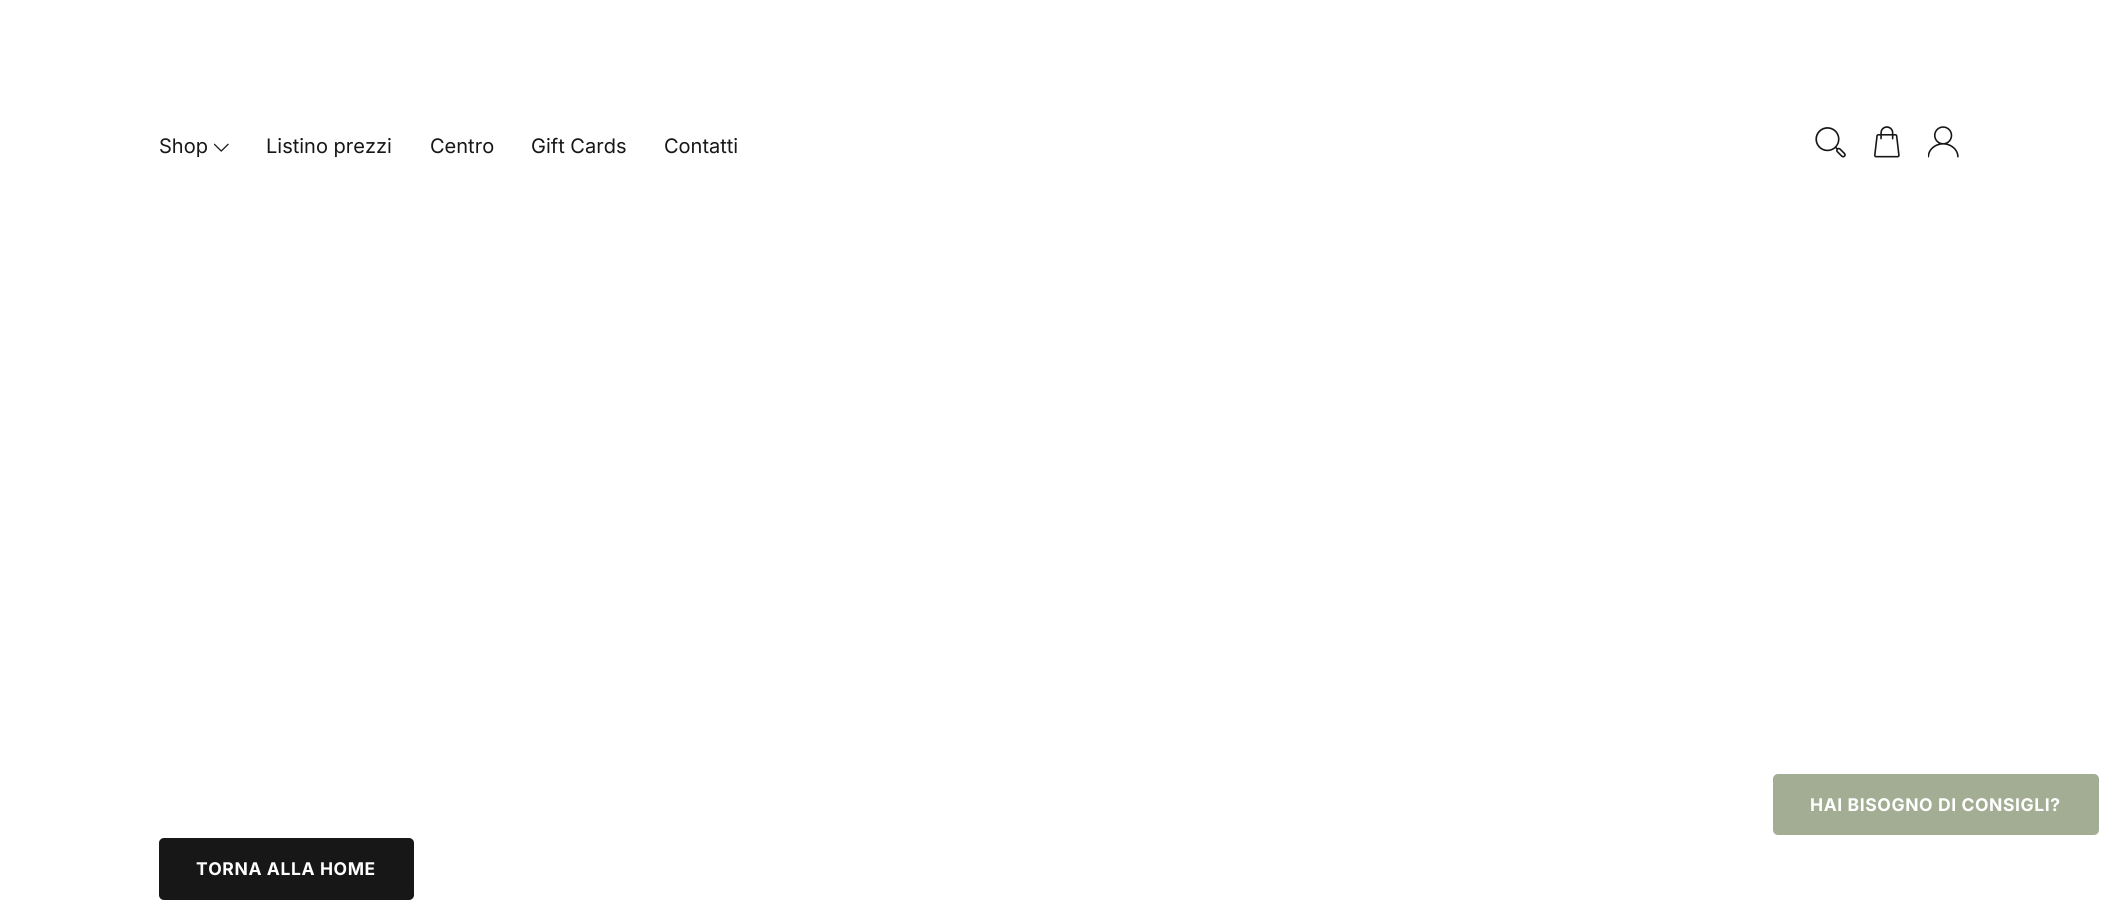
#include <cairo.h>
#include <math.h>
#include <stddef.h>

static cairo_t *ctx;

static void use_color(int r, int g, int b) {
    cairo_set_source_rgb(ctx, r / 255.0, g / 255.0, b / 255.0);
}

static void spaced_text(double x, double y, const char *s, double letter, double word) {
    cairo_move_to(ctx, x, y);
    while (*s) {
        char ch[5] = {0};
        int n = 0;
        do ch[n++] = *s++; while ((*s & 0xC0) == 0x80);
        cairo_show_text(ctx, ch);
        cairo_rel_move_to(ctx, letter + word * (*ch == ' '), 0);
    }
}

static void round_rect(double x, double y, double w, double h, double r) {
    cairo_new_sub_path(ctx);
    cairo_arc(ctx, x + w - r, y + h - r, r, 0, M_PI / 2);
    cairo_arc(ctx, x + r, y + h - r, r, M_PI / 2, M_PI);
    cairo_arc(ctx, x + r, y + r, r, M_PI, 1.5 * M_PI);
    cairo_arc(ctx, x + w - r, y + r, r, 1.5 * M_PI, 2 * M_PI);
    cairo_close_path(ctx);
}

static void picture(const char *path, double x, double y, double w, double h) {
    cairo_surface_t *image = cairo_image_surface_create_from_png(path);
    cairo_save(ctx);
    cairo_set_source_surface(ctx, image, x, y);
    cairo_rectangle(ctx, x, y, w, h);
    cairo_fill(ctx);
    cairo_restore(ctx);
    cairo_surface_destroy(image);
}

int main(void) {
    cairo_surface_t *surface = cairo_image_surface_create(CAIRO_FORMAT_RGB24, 2117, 910);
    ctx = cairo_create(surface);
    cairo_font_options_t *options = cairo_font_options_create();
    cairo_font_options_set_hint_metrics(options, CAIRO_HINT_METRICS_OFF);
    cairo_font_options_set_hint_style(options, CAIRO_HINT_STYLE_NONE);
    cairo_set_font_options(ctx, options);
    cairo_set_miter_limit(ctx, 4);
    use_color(255, 255, 255);
    cairo_paint(ctx);
    cairo_select_font_face(ctx, "Inter", CAIRO_FONT_SLANT_NORMAL, CAIRO_FONT_WEIGHT_NORMAL);
    cairo_set_font_size(ctx, 20);
    use_color(23, 23, 23);
    cairo_move_to(ctx, 159, 153);
    cairo_show_text(ctx, "Shop");
    picture("img1.png", 214, 143, 15, 9);
    cairo_move_to(ctx, 266, 153);
    cairo_show_text(ctx, "Listino prezzi");
    cairo_move_to(ctx, 430, 153);
    cairo_show_text(ctx, "Centro");
    cairo_move_to(ctx, 531, 153);
    cairo_show_text(ctx, "Gift Cards");
    cairo_move_to(ctx, 664, 153);
    cairo_show_text(ctx, "Contatti");
    picture("img2.png", 1815, 127, 31, 31);
    picture("img3.png", 1874, 126, 26, 32);
    picture("img4.png", 1928, 126, 31, 32);
    use_color(163, 173, 148);
    round_rect(1773, 774, 326, 61, 5);
    cairo_fill(ctx);
    cairo_select_font_face(ctx, "Inter", CAIRO_FONT_SLANT_NORMAL, CAIRO_FONT_WEIGHT_BOLD);
    cairo_set_font_size(ctx, 17.5);
    use_color(255, 255, 255);
    spaced_text(1810, 811, "HAI BISOGNO DI CONSIGLI?", 0.6, 0);
    use_color(23, 23, 23);
    round_rect(159, 838, 255, 62, 5);
    cairo_fill(ctx);
    use_color(255, 255, 255);
    spaced_text(196, 875, "TORNA ALLA HOME", 0.6, 0);
    cairo_surface_write_to_png(surface, "result.png");
    cairo_font_options_destroy(options);
    cairo_destroy(ctx);
    cairo_surface_destroy(surface);
    return 0;
}
